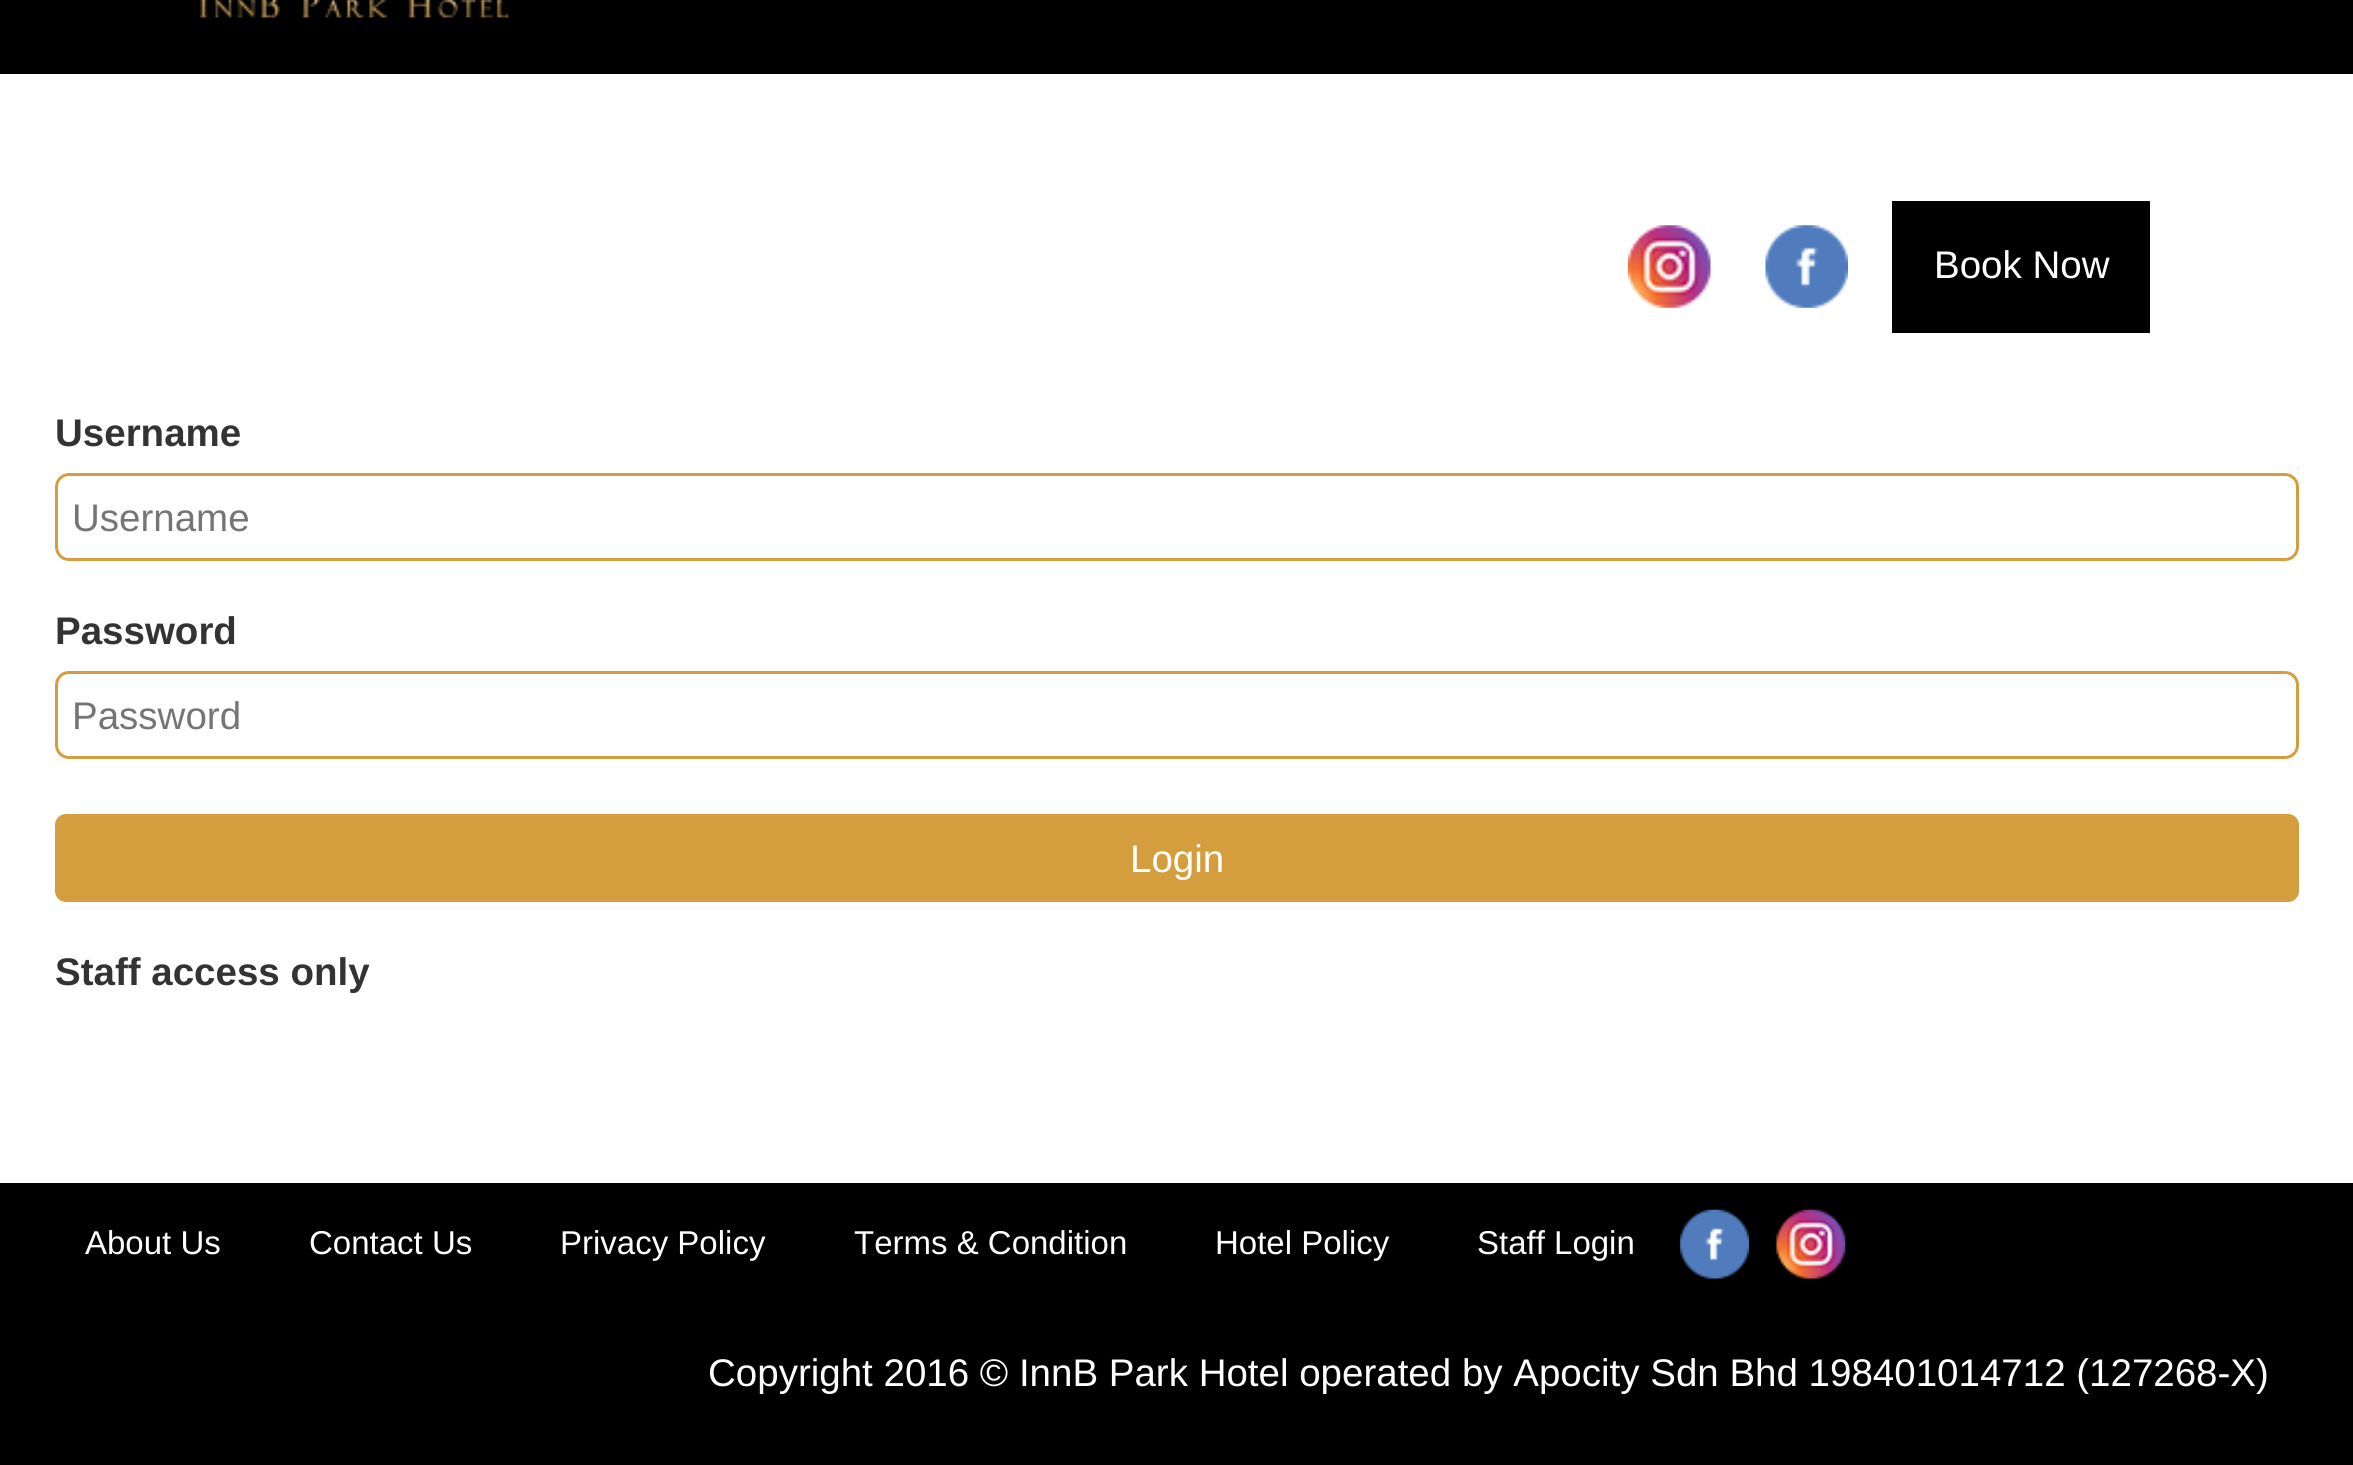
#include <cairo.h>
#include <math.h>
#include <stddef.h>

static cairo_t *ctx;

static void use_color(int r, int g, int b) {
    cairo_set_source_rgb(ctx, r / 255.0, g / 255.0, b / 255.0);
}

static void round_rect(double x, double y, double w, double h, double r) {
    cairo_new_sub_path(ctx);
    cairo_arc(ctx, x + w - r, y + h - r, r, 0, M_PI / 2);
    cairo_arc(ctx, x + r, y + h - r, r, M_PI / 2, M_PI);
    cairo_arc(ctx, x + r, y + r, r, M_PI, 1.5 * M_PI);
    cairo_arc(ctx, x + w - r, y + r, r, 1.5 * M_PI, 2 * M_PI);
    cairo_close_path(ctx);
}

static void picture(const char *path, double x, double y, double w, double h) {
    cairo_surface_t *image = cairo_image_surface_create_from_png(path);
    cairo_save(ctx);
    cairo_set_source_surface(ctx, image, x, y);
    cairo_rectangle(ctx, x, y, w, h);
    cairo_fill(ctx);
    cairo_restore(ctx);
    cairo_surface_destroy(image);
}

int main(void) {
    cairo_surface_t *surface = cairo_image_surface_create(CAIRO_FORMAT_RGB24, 2353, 1465);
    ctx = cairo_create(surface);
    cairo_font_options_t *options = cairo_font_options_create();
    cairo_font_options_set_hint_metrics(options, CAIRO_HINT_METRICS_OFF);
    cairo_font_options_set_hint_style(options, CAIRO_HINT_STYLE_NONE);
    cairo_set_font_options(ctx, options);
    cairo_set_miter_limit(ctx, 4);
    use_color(255, 255, 255);
    cairo_paint(ctx);
    use_color(0, 0, 0);
    cairo_rectangle(ctx, 0, 0, 2353, 74);
    cairo_fill(ctx);
    picture("img1.png", 199, 0, 310, 18);
    picture("img2.png", 1628, 225, 83, 83);
    picture("img3.png", 1765, 225, 83, 83);
    cairo_rectangle(ctx, 1892, 201, 258, 132);
    cairo_fill(ctx);
    cairo_select_font_face(ctx, "Liberation Sans", CAIRO_FONT_SLANT_NORMAL, CAIRO_FONT_WEIGHT_NORMAL);
    cairo_set_font_size(ctx, 38.5);
    use_color(255, 255, 255);
    cairo_move_to(ctx, 1934, 278);
    cairo_show_text(ctx, "Book Now");
    cairo_select_font_face(ctx, "Liberation Sans", CAIRO_FONT_SLANT_NORMAL, CAIRO_FONT_WEIGHT_BOLD);
    use_color(51, 51, 51);
    cairo_move_to(ctx, 55, 446);
    cairo_show_text(ctx, "Username");
    round_rect(56.5, 474.5, 2241, 85, 12.5);
    use_color(212, 158, 63);
    cairo_set_line_width(ctx, 3);
    cairo_stroke(ctx);
    cairo_select_font_face(ctx, "Liberation Sans", CAIRO_FONT_SLANT_NORMAL, CAIRO_FONT_WEIGHT_NORMAL);
    use_color(117, 117, 117);
    cairo_move_to(ctx, 72, 531);
    cairo_show_text(ctx, "Username");
    cairo_select_font_face(ctx, "Liberation Sans", CAIRO_FONT_SLANT_NORMAL, CAIRO_FONT_WEIGHT_BOLD);
    use_color(51, 51, 51);
    cairo_move_to(ctx, 55, 644);
    cairo_show_text(ctx, "Password");
    round_rect(56.5, 672.5, 2241, 85, 12.5);
    use_color(212, 158, 63);
    cairo_stroke(ctx);
    cairo_select_font_face(ctx, "Liberation Sans", CAIRO_FONT_SLANT_NORMAL, CAIRO_FONT_WEIGHT_NORMAL);
    use_color(117, 117, 117);
    cairo_move_to(ctx, 72, 729);
    cairo_show_text(ctx, "Password");
    use_color(212, 158, 63);
    round_rect(55, 814, 2244, 88, 11);
    cairo_fill(ctx);
    use_color(255, 255, 255);
    cairo_move_to(ctx, 1130, 872);
    cairo_show_text(ctx, "Login");
    cairo_select_font_face(ctx, "Liberation Sans", CAIRO_FONT_SLANT_NORMAL, CAIRO_FONT_WEIGHT_BOLD);
    use_color(51, 51, 51);
    cairo_move_to(ctx, 55, 985);
    cairo_show_text(ctx, "Staff access only");
    use_color(0, 0, 0);
    cairo_rectangle(ctx, 0, 1183, 2353, 282);
    cairo_fill(ctx);
    cairo_select_font_face(ctx, "Liberation Sans", CAIRO_FONT_SLANT_NORMAL, CAIRO_FONT_WEIGHT_NORMAL);
    cairo_set_font_size(ctx, 33);
    use_color(255, 255, 255);
    cairo_move_to(ctx, 85, 1254);
    cairo_show_text(ctx, "About Us");
    cairo_move_to(ctx, 309, 1254);
    cairo_show_text(ctx, "Contact Us");
    cairo_move_to(ctx, 560, 1254);
    cairo_show_text(ctx, "Privacy Policy");
    cairo_move_to(ctx, 854, 1254);
    cairo_show_text(ctx, "Terms & Condition");
    cairo_move_to(ctx, 1215, 1254);
    cairo_show_text(ctx, "Hotel Policy");
    cairo_move_to(ctx, 1477, 1254);
    cairo_show_text(ctx, "Staff Login");
    picture("img4.png", 1680, 1209, 69, 70);
    picture("img5.png", 1776, 1209, 70, 70);
    cairo_set_font_size(ctx, 38.5);
    cairo_move_to(ctx, 708, 1386);
    cairo_show_text(ctx, "Copyright 2016 © InnB Park Hotel operated by Apocity Sdn Bhd 198401014712 (127268-X)");
    cairo_surface_write_to_png(surface, "result.png");
    cairo_font_options_destroy(options);
    cairo_destroy(ctx);
    cairo_surface_destroy(surface);
    return 0;
}
